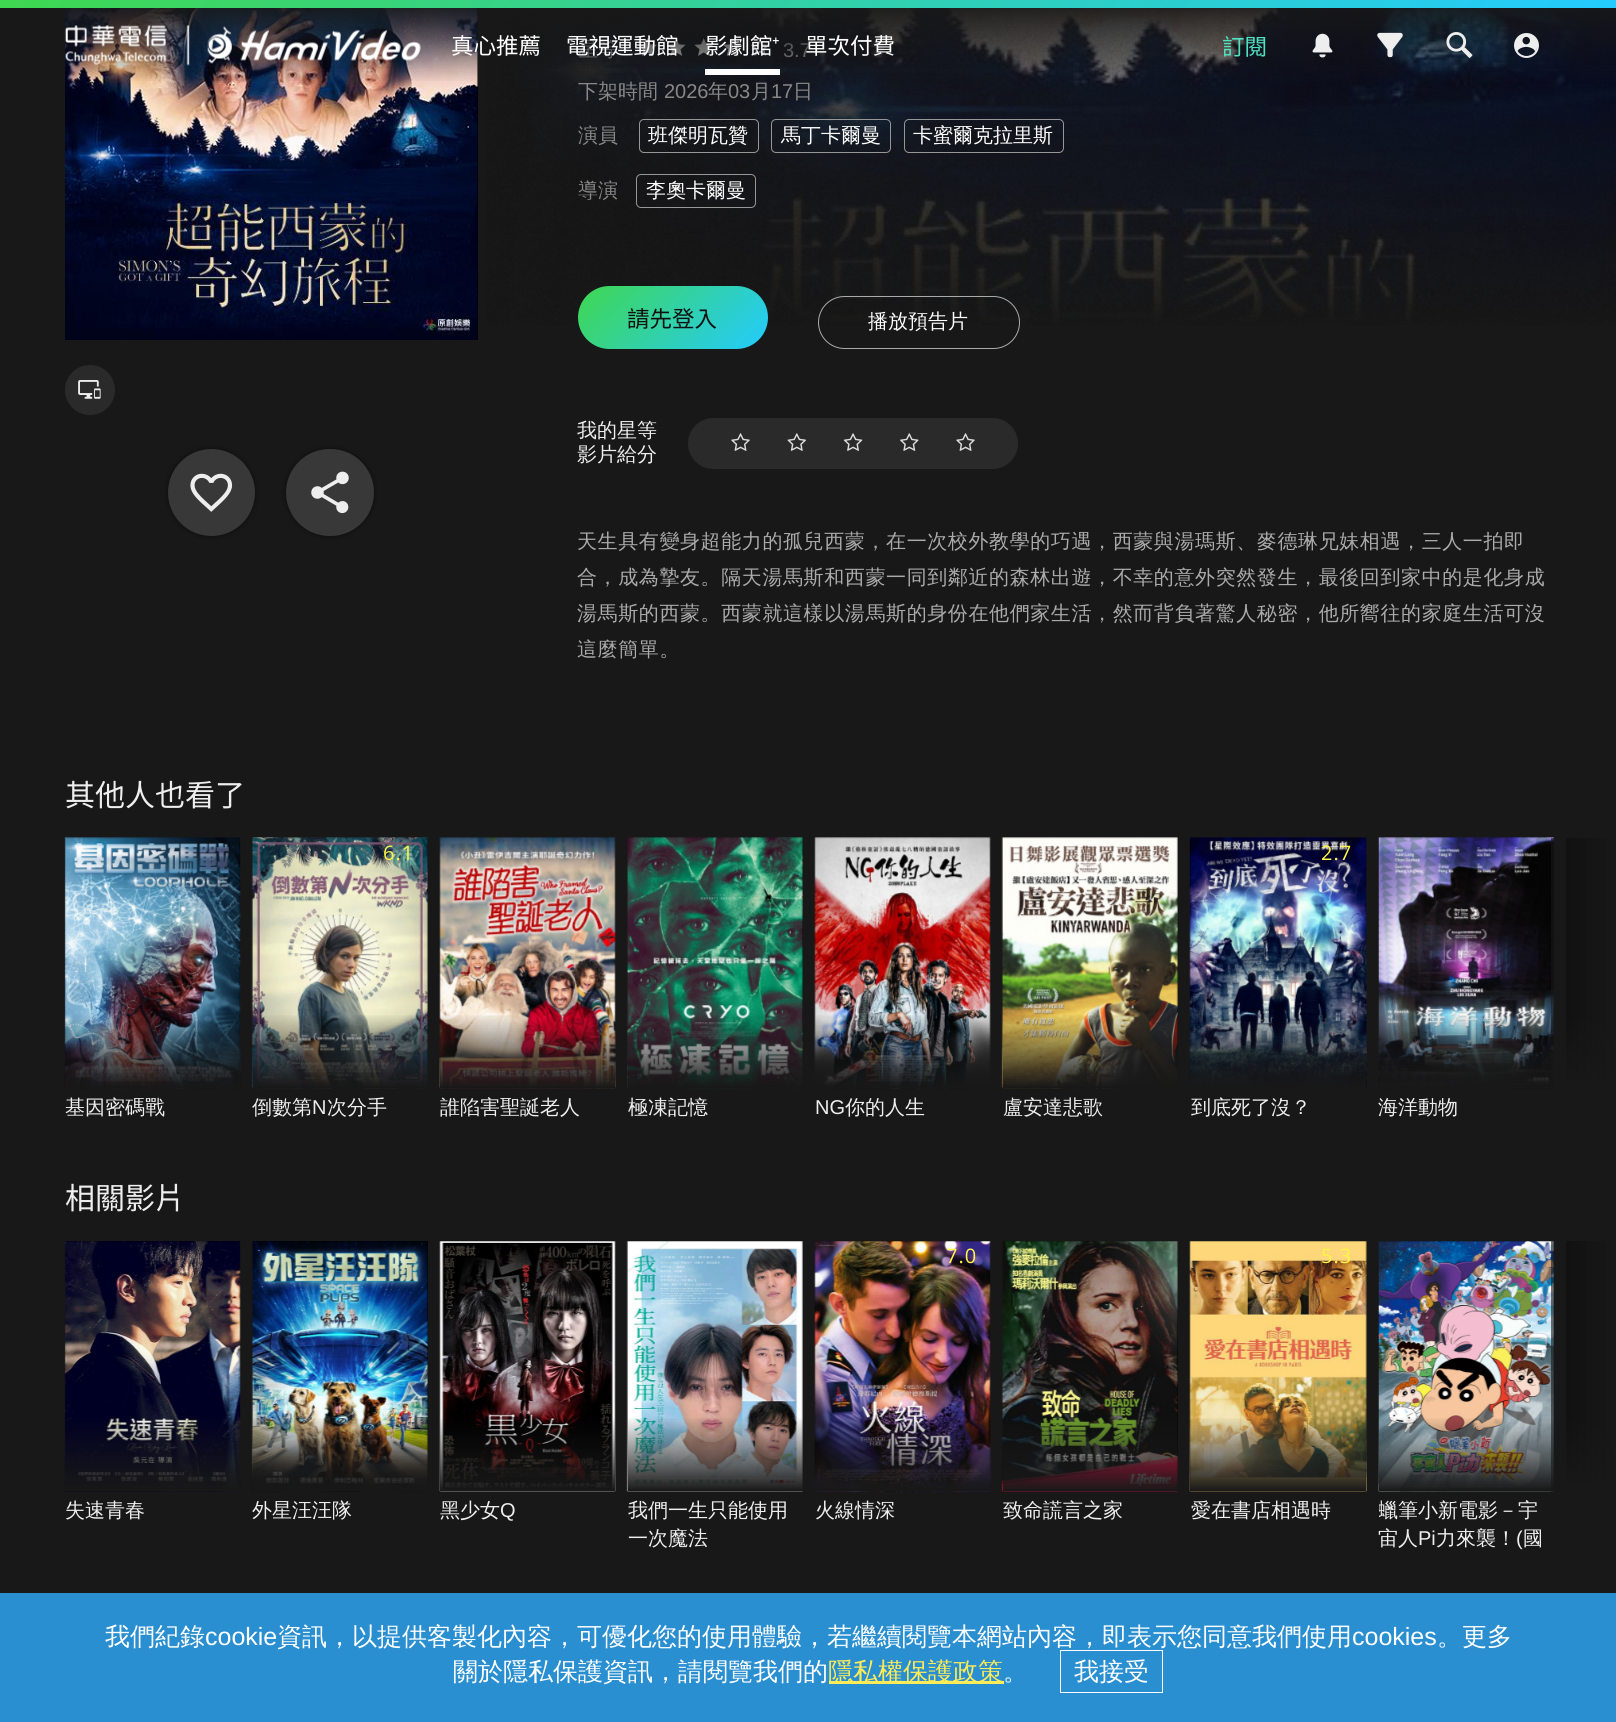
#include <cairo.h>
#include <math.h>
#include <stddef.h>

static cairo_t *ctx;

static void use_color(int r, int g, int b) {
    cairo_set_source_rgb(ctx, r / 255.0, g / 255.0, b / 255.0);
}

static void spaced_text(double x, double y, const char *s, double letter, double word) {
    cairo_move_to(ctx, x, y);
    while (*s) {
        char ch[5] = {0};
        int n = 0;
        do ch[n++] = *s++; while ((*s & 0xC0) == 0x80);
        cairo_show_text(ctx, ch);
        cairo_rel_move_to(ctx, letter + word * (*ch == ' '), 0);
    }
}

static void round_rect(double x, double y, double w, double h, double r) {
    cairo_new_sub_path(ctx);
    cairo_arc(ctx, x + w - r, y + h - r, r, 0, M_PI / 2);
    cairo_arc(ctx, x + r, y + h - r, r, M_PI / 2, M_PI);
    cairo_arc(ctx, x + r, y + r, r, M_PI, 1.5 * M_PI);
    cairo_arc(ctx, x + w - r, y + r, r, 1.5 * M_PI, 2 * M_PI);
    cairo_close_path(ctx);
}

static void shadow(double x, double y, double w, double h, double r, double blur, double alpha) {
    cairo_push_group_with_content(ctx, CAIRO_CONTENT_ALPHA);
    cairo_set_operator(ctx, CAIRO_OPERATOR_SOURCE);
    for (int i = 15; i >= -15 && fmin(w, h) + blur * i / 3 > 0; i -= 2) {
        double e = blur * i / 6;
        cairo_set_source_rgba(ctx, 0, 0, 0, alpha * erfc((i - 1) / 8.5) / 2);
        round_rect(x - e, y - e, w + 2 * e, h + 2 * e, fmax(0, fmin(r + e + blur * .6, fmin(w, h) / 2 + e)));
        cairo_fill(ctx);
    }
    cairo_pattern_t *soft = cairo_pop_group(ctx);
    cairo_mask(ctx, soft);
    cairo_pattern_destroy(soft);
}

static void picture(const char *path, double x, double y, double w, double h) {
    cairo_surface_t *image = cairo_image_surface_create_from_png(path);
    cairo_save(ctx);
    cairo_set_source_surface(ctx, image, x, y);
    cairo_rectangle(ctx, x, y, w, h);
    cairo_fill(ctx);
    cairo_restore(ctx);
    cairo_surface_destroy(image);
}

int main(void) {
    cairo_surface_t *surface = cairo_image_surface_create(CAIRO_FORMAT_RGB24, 1616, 1722);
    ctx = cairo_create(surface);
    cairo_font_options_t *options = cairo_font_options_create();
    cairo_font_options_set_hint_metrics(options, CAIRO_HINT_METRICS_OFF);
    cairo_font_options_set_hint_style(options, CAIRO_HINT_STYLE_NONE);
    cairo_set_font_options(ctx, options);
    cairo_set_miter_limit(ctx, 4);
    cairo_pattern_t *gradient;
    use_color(24, 24, 24);
    cairo_paint(ctx);
    picture("img7.png", 492, 8, 1124, 315);
    picture("img6.png", 485, 8, 1131, 317);
    use_color(0, 0, 0);
    cairo_rectangle(ctx, 477, 8, 1, 332);
    cairo_fill(ctx);
    picture("img8.png", 65, 8, 413, 332);
    cairo_select_font_face(ctx, "WenQuanYi Zen Hei Medium", CAIRO_FONT_SLANT_NORMAL, CAIRO_FONT_WEIGHT_NORMAL);
    cairo_set_font_size(ctx, 20);
    use_color(136, 136, 136);
    cairo_move_to(ctx, 578, 56);
    cairo_show_text(ctx, "星等");
    picture("img12.png", 638, 38, 19, 18);
    picture("img13.png", 667, 38, 19, 18);
    picture("img14.png", 694, 38, 19, 18);
    picture("img15.png", 723, 38, 19, 18);
    picture("img16.png", 750, 38, 20, 18);
    cairo_select_font_face(ctx, "Liberation Sans", CAIRO_FONT_SLANT_NORMAL, CAIRO_FONT_WEIGHT_NORMAL);
    cairo_move_to(ctx, 783, 57);
    cairo_show_text(ctx, "3.7");
    gradient = cairo_pattern_create_linear(808, 0, 808, 83);
    cairo_pattern_add_color_stop_rgba(gradient, 0, 0.094, 0.094, 0.094, 1);
    cairo_pattern_add_color_stop_rgba(gradient, 1, 0.094, 0.094, 0.094, 0);
    cairo_set_source(ctx, gradient);
    cairo_pattern_destroy(gradient);
    cairo_rectangle(ctx, 65, 8, 1551, 73);
    cairo_fill(ctx);
    gradient = cairo_pattern_create_linear(398, -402, 1218, 410);
    cairo_pattern_add_color_stop_rgba(gradient, 0, 0.247, 0.843, 0.314, 1);
    cairo_pattern_add_color_stop_rgba(gradient, 1, 0.141, 0.796, 1, 1);
    cairo_set_source(ctx, gradient);
    cairo_pattern_destroy(gradient);
    cairo_rectangle(ctx, 0, 0, 1616, 8);
    cairo_fill(ctx);
    picture("img1.png", 64, 25, 357, 41);
    cairo_select_font_face(ctx, "Noto Sans TC Thin", CAIRO_FONT_SLANT_NORMAL, CAIRO_FONT_WEIGHT_NORMAL);
    cairo_set_font_size(ctx, 22.5);
    use_color(255, 255, 255);
    cairo_move_to(ctx, 451, 54);
    cairo_show_text(ctx, "真心推薦");
    cairo_move_to(ctx, 566, 54);
    cairo_show_text(ctx, "電視運動館");
    cairo_rectangle(ctx, 705, 69, 75, 6);
    cairo_fill(ctx);
    cairo_move_to(ctx, 705, 54);
    cairo_show_text(ctx, "影劇館");
    cairo_select_font_face(ctx, "Noto Sans", CAIRO_FONT_SLANT_NORMAL, CAIRO_FONT_WEIGHT_NORMAL);
    cairo_move_to(ctx, 772, 54);
    cairo_show_text(ctx, "⁺");
    cairo_select_font_face(ctx, "Noto Sans TC Thin", CAIRO_FONT_SLANT_NORMAL, CAIRO_FONT_WEIGHT_NORMAL);
    cairo_move_to(ctx, 805, 54);
    cairo_show_text(ctx, "單次付費");
    use_color(80, 227, 194);
    cairo_move_to(ctx, 1222, 55);
    cairo_show_text(ctx, "訂閱");
    picture("img2.png", 1312, 33, 21, 25);
    picture("img3.png", 1377, 32, 26, 26);
    picture("img4.png", 1446, 32, 27, 26);
    picture("img5.png", 1514, 33, 25, 25);
    use_color(42, 42, 42);
    cairo_arc(ctx, 90, 390, 25, 0, 2 * M_PI);
    cairo_fill(ctx);
    picture("img9.png", 78, 380, 23, 19);
    use_color(0, 0, 0);
    shadow(168, 449, 87, 87, 43.5, 3, 0.5);
    use_color(56, 56, 56);
    cairo_arc(ctx, 211.5, 492.5, 43.5, 0, 2 * M_PI);
    cairo_fill(ctx);
    picture("img10.png", 190, 473, 43, 39);
    use_color(0, 0, 0);
    shadow(286, 449, 88, 87, 43.5, 3, 0.5);
    use_color(56, 56, 56);
    round_rect(286, 449, 88, 87, 43.5);
    cairo_fill(ctx);
    picture("img11.png", 311, 471, 38, 43);
    cairo_select_font_face(ctx, "WenQuanYi Zen Hei Medium", CAIRO_FONT_SLANT_NORMAL, CAIRO_FONT_WEIGHT_NORMAL);
    cairo_set_font_size(ctx, 20);
    use_color(136, 136, 136);
    cairo_move_to(ctx, 578, 98);
    cairo_show_text(ctx, "下架時間");
    cairo_select_font_face(ctx, "Liberation Sans", CAIRO_FONT_SLANT_NORMAL, CAIRO_FONT_WEIGHT_NORMAL);
    cairo_move_to(ctx, 664, 98);
    cairo_show_text(ctx, "2026");
    cairo_select_font_face(ctx, "WenQuanYi Zen Hei Medium", CAIRO_FONT_SLANT_NORMAL, CAIRO_FONT_WEIGHT_NORMAL);
    cairo_move_to(ctx, 708, 98);
    cairo_show_text(ctx, "年");
    cairo_select_font_face(ctx, "Liberation Sans", CAIRO_FONT_SLANT_NORMAL, CAIRO_FONT_WEIGHT_NORMAL);
    cairo_move_to(ctx, 728, 98);
    cairo_show_text(ctx, "03");
    cairo_select_font_face(ctx, "WenQuanYi Zen Hei Medium", CAIRO_FONT_SLANT_NORMAL, CAIRO_FONT_WEIGHT_NORMAL);
    cairo_move_to(ctx, 751, 98);
    cairo_show_text(ctx, "月");
    cairo_select_font_face(ctx, "Liberation Sans", CAIRO_FONT_SLANT_NORMAL, CAIRO_FONT_WEIGHT_NORMAL);
    cairo_move_to(ctx, 771, 98);
    cairo_show_text(ctx, "17");
    cairo_select_font_face(ctx, "WenQuanYi Zen Hei Medium", CAIRO_FONT_SLANT_NORMAL, CAIRO_FONT_WEIGHT_NORMAL);
    cairo_move_to(ctx, 793, 98);
    cairo_show_text(ctx, "日");
    cairo_move_to(ctx, 578, 142);
    cairo_show_text(ctx, "演員");
    round_rect(639.5, 119.5, 119, 33, 4.5);
    use_color(151, 151, 151);
    cairo_set_line_width(ctx, 1);
    cairo_stroke(ctx);
    use_color(255, 255, 255);
    cairo_move_to(ctx, 648, 142);
    cairo_show_text(ctx, "班傑明瓦贊");
    round_rect(771.5, 119.5, 119, 33, 4.5);
    use_color(151, 151, 151);
    cairo_stroke(ctx);
    use_color(255, 255, 255);
    cairo_move_to(ctx, 781, 142);
    cairo_show_text(ctx, "馬丁卡爾曼");
    round_rect(904.5, 119.5, 159, 33, 4.5);
    use_color(151, 151, 151);
    cairo_stroke(ctx);
    use_color(255, 255, 255);
    cairo_move_to(ctx, 913, 142);
    cairo_show_text(ctx, "卡蜜爾克拉里斯");
    use_color(136, 136, 136);
    cairo_move_to(ctx, 578, 197);
    cairo_show_text(ctx, "導演");
    round_rect(636.5, 174.5, 119, 33, 4.5);
    use_color(151, 151, 151);
    cairo_stroke(ctx);
    use_color(255, 255, 255);
    cairo_move_to(ctx, 646, 197);
    cairo_show_text(ctx, "李奧卡爾曼");
    gradient = cairo_pattern_create_linear(609, 255, 736, 380);
    cairo_pattern_add_color_stop_rgba(gradient, 0, 0.247, 0.843, 0.314, 1);
    cairo_pattern_add_color_stop_rgba(gradient, 1, 0.141, 0.796, 1, 1);
    cairo_set_source(ctx, gradient);
    cairo_pattern_destroy(gradient);
    round_rect(578, 286, 190, 63, 31.5);
    cairo_fill(ctx);
    cairo_select_font_face(ctx, "Noto Sans TC Thin", CAIRO_FONT_SLANT_NORMAL, CAIRO_FONT_WEIGHT_NORMAL);
    cairo_set_font_size(ctx, 22.5);
    use_color(17, 17, 17);
    cairo_move_to(ctx, 627, 327);
    cairo_show_text(ctx, "請先登入");
    round_rect(818.5, 296.5, 201, 52, 26);
    use_color(170, 170, 170);
    cairo_stroke(ctx);
    cairo_select_font_face(ctx, "WenQuanYi Zen Hei Medium", CAIRO_FONT_SLANT_NORMAL, CAIRO_FONT_WEIGHT_NORMAL);
    cairo_set_font_size(ctx, 20);
    use_color(255, 255, 255);
    cairo_move_to(ctx, 868, 328);
    cairo_show_text(ctx, "播放預告片");
    use_color(238, 238, 238);
    cairo_move_to(ctx, 577, 437);
    cairo_show_text(ctx, "我的星等");
    cairo_move_to(ctx, 577, 461);
    cairo_show_text(ctx, "影片給分");
    use_color(42, 42, 42);
    round_rect(688, 418, 330, 51, 25.5);
    cairo_fill(ctx);
    picture("img17.png", 731, 433, 19, 18);
    picture("img18.png", 787, 433, 19, 18);
    picture("img19.png", 843, 433, 20, 18);
    picture("img20.png", 900, 433, 19, 18);
    picture("img17.png", 956, 433, 19, 18);
    use_color(170, 170, 170);
    spaced_text(577, 548, "天生具有變身超能力的孤兒西蒙，在一次校外教學的巧遇，西蒙與湯瑪斯、麥德琳兄妹相遇，三人一拍即", 0.6, 0);
    spaced_text(577, 584, "合，成為摯友。隔天湯馬斯和西蒙一同到鄰近的森林出遊，不幸的意外突然發生，最後回到家中的是化身成", 0.6, 0);
    spaced_text(577, 620, "湯馬斯的西蒙。西蒙就這樣以湯馬斯的身份在他們家生活，然而背負著驚人秘密，他所嚮往的家庭生活可沒", 0.6, 0);
    spaced_text(577, 656, "這麼簡單。", 0.6, 0);
    cairo_select_font_face(ctx, "Noto Sans TC Thin", CAIRO_FONT_SLANT_NORMAL, CAIRO_FONT_WEIGHT_NORMAL);
    cairo_set_font_size(ctx, 30);
    use_color(238, 238, 238);
    cairo_move_to(ctx, 65, 806);
    cairo_show_text(ctx, "其他人也看了");
    use_color(0, 0, 0);
    cairo_rectangle(ctx, 65, 838, 175, 250);
    cairo_fill(ctx);
    picture("img21.png", 64, 837, 177, 252);
    gradient = cairo_pattern_create_linear(65, 980, 0, 980);
    cairo_pattern_add_color_stop_rgba(gradient, 0, 0.094, 0.094, 0.094, 0.6);
    cairo_pattern_add_color_stop_rgba(gradient, 1, 0.094, 0.094, 0.094, 1);
    cairo_set_source(ctx, gradient);
    cairo_pattern_destroy(gradient);
    cairo_rectangle(ctx, 64, 838, 1, 234);
    cairo_fill(ctx);
    gradient = cairo_pattern_create_linear(152, 838, 153, 1088);
    cairo_pattern_add_color_stop_rgba(gradient, 0.7, 0.094, 0.094, 0.094, 0);
    cairo_pattern_add_color_stop_rgba(gradient, 1, 0.094, 0.094, 0.094, 1);
    cairo_set_source(ctx, gradient);
    cairo_pattern_destroy(gradient);
    cairo_rectangle(ctx, 65, 1014, 175, 74);
    cairo_fill(ctx);
    cairo_select_font_face(ctx, "WenQuanYi Zen Hei Medium", CAIRO_FONT_SLANT_NORMAL, CAIRO_FONT_WEIGHT_NORMAL);
    cairo_set_font_size(ctx, 20);
    use_color(238, 238, 238);
    cairo_move_to(ctx, 65, 1114);
    cairo_show_text(ctx, "基因密碼戰");
    use_color(0, 0, 0);
    cairo_rectangle(ctx, 253, 838, 175, 250);
    cairo_fill(ctx);
    picture("img22.png", 251, 837, 177, 252);
    cairo_select_font_face(ctx, "Open Sans", CAIRO_FONT_SLANT_NORMAL, CAIRO_FONT_WEIGHT_NORMAL);
    use_color(255, 246, 70);
    spaced_text(383, 860, "6.1", 1, 0);
    gradient = cairo_pattern_create_linear(340, 838, 340, 1088);
    cairo_pattern_add_color_stop_rgba(gradient, 0.7, 0.094, 0.094, 0.094, 0);
    cairo_pattern_add_color_stop_rgba(gradient, 1, 0.094, 0.094, 0.094, 1);
    cairo_set_source(ctx, gradient);
    cairo_pattern_destroy(gradient);
    cairo_rectangle(ctx, 253, 1015, 175, 73);
    cairo_fill(ctx);
    cairo_select_font_face(ctx, "WenQuanYi Zen Hei Medium", CAIRO_FONT_SLANT_NORMAL, CAIRO_FONT_WEIGHT_NORMAL);
    use_color(238, 238, 238);
    cairo_move_to(ctx, 252, 1114);
    cairo_show_text(ctx, "倒數第");
    cairo_select_font_face(ctx, "Liberation Sans", CAIRO_FONT_SLANT_NORMAL, CAIRO_FONT_WEIGHT_NORMAL);
    cairo_move_to(ctx, 312, 1114);
    cairo_show_text(ctx, "N");
    cairo_select_font_face(ctx, "WenQuanYi Zen Hei Medium", CAIRO_FONT_SLANT_NORMAL, CAIRO_FONT_WEIGHT_NORMAL);
    cairo_move_to(ctx, 327, 1114);
    cairo_show_text(ctx, "次分手");
    use_color(0, 0, 0);
    cairo_rectangle(ctx, 440, 838, 175, 250);
    cairo_fill(ctx);
    picture("img23.png", 439, 837, 177, 252);
    gradient = cairo_pattern_create_linear(528, 838, 528, 1088);
    cairo_pattern_add_color_stop_rgba(gradient, 0.7, 0.094, 0.094, 0.094, 0);
    cairo_pattern_add_color_stop_rgba(gradient, 1, 0.094, 0.094, 0.094, 1);
    cairo_set_source(ctx, gradient);
    cairo_pattern_destroy(gradient);
    cairo_rectangle(ctx, 440, 1015, 175, 73);
    cairo_fill(ctx);
    use_color(238, 238, 238);
    cairo_move_to(ctx, 440, 1114);
    cairo_show_text(ctx, "誰陷害聖誕老人");
    use_color(0, 0, 0);
    cairo_rectangle(ctx, 628, 838, 175, 250);
    cairo_fill(ctx);
    picture("img24.png", 626, 837, 177, 252);
    gradient = cairo_pattern_create_linear(715, 838, 715, 1088);
    cairo_pattern_add_color_stop_rgba(gradient, 0.7, 0.094, 0.094, 0.094, 0);
    cairo_pattern_add_color_stop_rgba(gradient, 1, 0.094, 0.094, 0.094, 1);
    cairo_set_source(ctx, gradient);
    cairo_pattern_destroy(gradient);
    cairo_rectangle(ctx, 628, 1015, 175, 73);
    cairo_fill(ctx);
    use_color(238, 238, 238);
    cairo_move_to(ctx, 628, 1114);
    cairo_show_text(ctx, "極凍記憶");
    use_color(0, 0, 0);
    cairo_rectangle(ctx, 815, 838, 175, 250);
    cairo_fill(ctx);
    picture("img25.png", 814, 837, 177, 252);
    gradient = cairo_pattern_create_linear(903, 838, 903, 1088);
    cairo_pattern_add_color_stop_rgba(gradient, 0.7, 0.094, 0.094, 0.094, 0);
    cairo_pattern_add_color_stop_rgba(gradient, 1, 0.094, 0.094, 0.094, 1);
    cairo_set_source(ctx, gradient);
    cairo_pattern_destroy(gradient);
    cairo_rectangle(ctx, 815, 1015, 175, 73);
    cairo_fill(ctx);
    cairo_select_font_face(ctx, "Liberation Sans", CAIRO_FONT_SLANT_NORMAL, CAIRO_FONT_WEIGHT_NORMAL);
    use_color(238, 238, 238);
    cairo_move_to(ctx, 815, 1114);
    cairo_show_text(ctx, "NG");
    cairo_select_font_face(ctx, "WenQuanYi Zen Hei Medium", CAIRO_FONT_SLANT_NORMAL, CAIRO_FONT_WEIGHT_NORMAL);
    cairo_move_to(ctx, 845, 1114);
    cairo_show_text(ctx, "你的人生");
    use_color(0, 0, 0);
    cairo_rectangle(ctx, 1003, 838, 175, 250);
    cairo_fill(ctx);
    picture("img26.png", 1001, 837, 177, 252);
    gradient = cairo_pattern_create_linear(1090, 838, 1090, 1088);
    cairo_pattern_add_color_stop_rgba(gradient, 0.7, 0.094, 0.094, 0.094, 0);
    cairo_pattern_add_color_stop_rgba(gradient, 1, 0.094, 0.094, 0.094, 1);
    cairo_set_source(ctx, gradient);
    cairo_pattern_destroy(gradient);
    cairo_rectangle(ctx, 1003, 1015, 175, 73);
    cairo_fill(ctx);
    use_color(238, 238, 238);
    cairo_move_to(ctx, 1003, 1114);
    cairo_show_text(ctx, "盧安達悲歌");
    use_color(0, 0, 0);
    cairo_rectangle(ctx, 1190, 838, 176, 250);
    cairo_fill(ctx);
    picture("img27.png", 1189, 837, 178, 251);
    cairo_select_font_face(ctx, "Open Sans", CAIRO_FONT_SLANT_NORMAL, CAIRO_FONT_WEIGHT_NORMAL);
    use_color(255, 246, 70);
    spaced_text(1321, 860, "2.7", 1, 0);
    gradient = cairo_pattern_create_linear(1278, 838, 1278, 1088);
    cairo_pattern_add_color_stop_rgba(gradient, 0.7, 0.094, 0.094, 0.094, 0);
    cairo_pattern_add_color_stop_rgba(gradient, 1, 0.094, 0.094, 0.094, 1);
    cairo_set_source(ctx, gradient);
    cairo_pattern_destroy(gradient);
    cairo_rectangle(ctx, 1190, 1015, 176, 73);
    cairo_fill(ctx);
    cairo_select_font_face(ctx, "WenQuanYi Zen Hei Medium", CAIRO_FONT_SLANT_NORMAL, CAIRO_FONT_WEIGHT_NORMAL);
    use_color(238, 238, 238);
    cairo_move_to(ctx, 1191, 1114);
    cairo_show_text(ctx, "到底死了沒？");
    use_color(0, 0, 0);
    cairo_rectangle(ctx, 1379, 838, 175, 250);
    cairo_fill(ctx);
    picture("img28.png", 1378, 837, 176, 252);
    gradient = cairo_pattern_create_linear(1466, 838, 1466, 1088);
    cairo_pattern_add_color_stop_rgba(gradient, 0.7, 0.094, 0.094, 0.094, 0);
    cairo_pattern_add_color_stop_rgba(gradient, 1, 0.094, 0.094, 0.094, 1);
    cairo_set_source(ctx, gradient);
    cairo_pattern_destroy(gradient);
    cairo_rectangle(ctx, 1379, 1015, 175, 73);
    cairo_fill(ctx);
    use_color(238, 238, 238);
    cairo_move_to(ctx, 1378, 1114);
    cairo_show_text(ctx, "海洋動物");
    gradient = cairo_pattern_create_linear(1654, 838, 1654, 1088);
    cairo_pattern_add_color_stop_rgba(gradient, 0.7, 0, 0, 0, 1);
    cairo_pattern_add_color_stop_rgba(gradient, 1, 0.094, 0.094, 0.094, 1);
    cairo_set_source(ctx, gradient);
    cairo_pattern_destroy(gradient);
    cairo_rectangle(ctx, 1566, 838, 49, 242);
    cairo_fill(ctx);
    gradient = cairo_pattern_create_linear(1551, 980, 1616, 980);
    cairo_pattern_add_color_stop_rgba(gradient, 0, 0.094, 0.094, 0.094, 0.6);
    cairo_pattern_add_color_stop_rgba(gradient, 1, 0.094, 0.094, 0.094, 1);
    cairo_set_source(ctx, gradient);
    cairo_pattern_destroy(gradient);
    cairo_rectangle(ctx, 1551, 838, 64, 242);
    cairo_fill(ctx);
    cairo_select_font_face(ctx, "Noto Sans TC Thin", CAIRO_FONT_SLANT_NORMAL, CAIRO_FONT_WEIGHT_NORMAL);
    cairo_set_font_size(ctx, 30);
    use_color(238, 238, 238);
    cairo_move_to(ctx, 65, 1209);
    cairo_show_text(ctx, "相關影片");
    use_color(0, 0, 0);
    cairo_rectangle(ctx, 65, 1241, 175, 250);
    cairo_fill(ctx);
    picture("img29.png", 64, 1241, 177, 251);
    gradient = cairo_pattern_create_linear(65, 1398, 0, 1398);
    cairo_pattern_add_color_stop_rgba(gradient, 0, 0.094, 0.094, 0.094, 0.6);
    cairo_pattern_add_color_stop_rgba(gradient, 1, 0.094, 0.094, 0.094, 1);
    cairo_set_source(ctx, gradient);
    cairo_pattern_destroy(gradient);
    cairo_rectangle(ctx, 64, 1242, 1, 214);
    cairo_fill(ctx);
    gradient = cairo_pattern_create_linear(152, 1241, 153, 1491);
    cairo_pattern_add_color_stop_rgba(gradient, 0.7, 0.094, 0.094, 0.094, 0);
    cairo_pattern_add_color_stop_rgba(gradient, 1, 0.094, 0.094, 0.094, 1);
    cairo_set_source(ctx, gradient);
    cairo_pattern_destroy(gradient);
    cairo_rectangle(ctx, 65, 1418, 175, 73);
    cairo_fill(ctx);
    cairo_select_font_face(ctx, "WenQuanYi Zen Hei Medium", CAIRO_FONT_SLANT_NORMAL, CAIRO_FONT_WEIGHT_NORMAL);
    cairo_set_font_size(ctx, 20);
    use_color(238, 238, 238);
    cairo_move_to(ctx, 65, 1517);
    cairo_show_text(ctx, "失速青春");
    use_color(0, 0, 0);
    cairo_rectangle(ctx, 253, 1241, 175, 250);
    cairo_fill(ctx);
    picture("img30.png", 251, 1241, 177, 251);
    gradient = cairo_pattern_create_linear(340, 1241, 340, 1491);
    cairo_pattern_add_color_stop_rgba(gradient, 0.7, 0.094, 0.094, 0.094, 0);
    cairo_pattern_add_color_stop_rgba(gradient, 1, 0.094, 0.094, 0.094, 1);
    cairo_set_source(ctx, gradient);
    cairo_pattern_destroy(gradient);
    cairo_rectangle(ctx, 253, 1418, 175, 73);
    cairo_fill(ctx);
    use_color(238, 238, 238);
    cairo_move_to(ctx, 252, 1517);
    cairo_show_text(ctx, "外星汪汪隊");
    use_color(0, 0, 0);
    cairo_rectangle(ctx, 440, 1241, 175, 250);
    cairo_fill(ctx);
    picture("img31.png", 439, 1241, 177, 251);
    gradient = cairo_pattern_create_linear(528, 1241, 528, 1491);
    cairo_pattern_add_color_stop_rgba(gradient, 0.7, 0.094, 0.094, 0.094, 0);
    cairo_pattern_add_color_stop_rgba(gradient, 1, 0.094, 0.094, 0.094, 1);
    cairo_set_source(ctx, gradient);
    cairo_pattern_destroy(gradient);
    cairo_rectangle(ctx, 440, 1418, 175, 73);
    cairo_fill(ctx);
    use_color(238, 238, 238);
    cairo_move_to(ctx, 440, 1517);
    cairo_show_text(ctx, "黑少女");
    cairo_select_font_face(ctx, "Liberation Sans", CAIRO_FONT_SLANT_NORMAL, CAIRO_FONT_WEIGHT_NORMAL);
    cairo_move_to(ctx, 500, 1517);
    cairo_show_text(ctx, "Q");
    use_color(0, 0, 0);
    cairo_rectangle(ctx, 628, 1241, 175, 250);
    cairo_fill(ctx);
    picture("img32.png", 626, 1241, 177, 251);
    gradient = cairo_pattern_create_linear(715, 1241, 715, 1491);
    cairo_pattern_add_color_stop_rgba(gradient, 0.7, 0.094, 0.094, 0.094, 0);
    cairo_pattern_add_color_stop_rgba(gradient, 1, 0.094, 0.094, 0.094, 1);
    cairo_set_source(ctx, gradient);
    cairo_pattern_destroy(gradient);
    cairo_rectangle(ctx, 628, 1418, 175, 73);
    cairo_fill(ctx);
    cairo_select_font_face(ctx, "WenQuanYi Zen Hei Medium", CAIRO_FONT_SLANT_NORMAL, CAIRO_FONT_WEIGHT_NORMAL);
    use_color(238, 238, 238);
    cairo_move_to(ctx, 628, 1517);
    cairo_show_text(ctx, "我們一生只能使用");
    cairo_move_to(ctx, 628, 1545);
    cairo_show_text(ctx, "一次魔法");
    use_color(0, 0, 0);
    cairo_rectangle(ctx, 815, 1241, 175, 250);
    cairo_fill(ctx);
    picture("img33.png", 814, 1241, 177, 251);
    cairo_select_font_face(ctx, "Open Sans", CAIRO_FONT_SLANT_NORMAL, CAIRO_FONT_WEIGHT_NORMAL);
    use_color(255, 246, 70);
    spaced_text(946, 1263, "7.0", 1, 0);
    gradient = cairo_pattern_create_linear(903, 1241, 903, 1491);
    cairo_pattern_add_color_stop_rgba(gradient, 0.7, 0.094, 0.094, 0.094, 0);
    cairo_pattern_add_color_stop_rgba(gradient, 1, 0.094, 0.094, 0.094, 1);
    cairo_set_source(ctx, gradient);
    cairo_pattern_destroy(gradient);
    cairo_rectangle(ctx, 815, 1418, 175, 73);
    cairo_fill(ctx);
    cairo_select_font_face(ctx, "WenQuanYi Zen Hei Medium", CAIRO_FONT_SLANT_NORMAL, CAIRO_FONT_WEIGHT_NORMAL);
    use_color(238, 238, 238);
    cairo_move_to(ctx, 815, 1517);
    cairo_show_text(ctx, "火線情深");
    use_color(0, 0, 0);
    cairo_rectangle(ctx, 1003, 1241, 175, 250);
    cairo_fill(ctx);
    picture("img34.png", 1001, 1241, 177, 251);
    gradient = cairo_pattern_create_linear(1090, 1241, 1090, 1491);
    cairo_pattern_add_color_stop_rgba(gradient, 0.7, 0.094, 0.094, 0.094, 0);
    cairo_pattern_add_color_stop_rgba(gradient, 1, 0.094, 0.094, 0.094, 1);
    cairo_set_source(ctx, gradient);
    cairo_pattern_destroy(gradient);
    cairo_rectangle(ctx, 1003, 1418, 175, 73);
    cairo_fill(ctx);
    use_color(238, 238, 238);
    cairo_move_to(ctx, 1003, 1517);
    cairo_show_text(ctx, "致命謊言之家");
    use_color(0, 0, 0);
    cairo_rectangle(ctx, 1190, 1241, 176, 250);
    cairo_fill(ctx);
    picture("img35.png", 1189, 1241, 178, 251);
    cairo_select_font_face(ctx, "Open Sans", CAIRO_FONT_SLANT_NORMAL, CAIRO_FONT_WEIGHT_NORMAL);
    use_color(255, 246, 70);
    spaced_text(1321, 1263, "5.3", 1, 0);
    gradient = cairo_pattern_create_linear(1278, 1241, 1278, 1491);
    cairo_pattern_add_color_stop_rgba(gradient, 0.7, 0.094, 0.094, 0.094, 0);
    cairo_pattern_add_color_stop_rgba(gradient, 1, 0.094, 0.094, 0.094, 1);
    cairo_set_source(ctx, gradient);
    cairo_pattern_destroy(gradient);
    cairo_rectangle(ctx, 1190, 1418, 176, 73);
    cairo_fill(ctx);
    cairo_select_font_face(ctx, "WenQuanYi Zen Hei Medium", CAIRO_FONT_SLANT_NORMAL, CAIRO_FONT_WEIGHT_NORMAL);
    use_color(238, 238, 238);
    cairo_move_to(ctx, 1191, 1517);
    cairo_show_text(ctx, "愛在書店相遇時");
    use_color(0, 0, 0);
    cairo_rectangle(ctx, 1379, 1241, 175, 250);
    cairo_fill(ctx);
    picture("img36.png", 1378, 1241, 176, 251);
    gradient = cairo_pattern_create_linear(1466, 1241, 1466, 1491);
    cairo_pattern_add_color_stop_rgba(gradient, 0.7, 0.094, 0.094, 0.094, 0);
    cairo_pattern_add_color_stop_rgba(gradient, 1, 0.094, 0.094, 0.094, 1);
    cairo_set_source(ctx, gradient);
    cairo_pattern_destroy(gradient);
    cairo_rectangle(ctx, 1379, 1418, 175, 73);
    cairo_fill(ctx);
    cairo_save(ctx);
    cairo_rectangle(ctx, 1379, 1498, 175, 56);
    cairo_clip(ctx);
    use_color(238, 238, 238);
    cairo_move_to(ctx, 1378, 1517);
    cairo_show_text(ctx, "蠟筆小新電影－宇");
    cairo_restore(ctx);
    use_color(238, 238, 238);
    cairo_move_to(ctx, 1378, 1545);
    cairo_show_text(ctx, "宙人");
    cairo_select_font_face(ctx, "Liberation Sans", CAIRO_FONT_SLANT_NORMAL, CAIRO_FONT_WEIGHT_NORMAL);
    cairo_move_to(ctx, 1418, 1545);
    cairo_show_text(ctx, "Pi");
    cairo_select_font_face(ctx, "WenQuanYi Zen Hei Medium", CAIRO_FONT_SLANT_NORMAL, CAIRO_FONT_WEIGHT_NORMAL);
    cairo_move_to(ctx, 1436, 1545);
    cairo_show_text(ctx, "力來襲！");
    cairo_select_font_face(ctx, "Liberation Sans", CAIRO_FONT_SLANT_NORMAL, CAIRO_FONT_WEIGHT_NORMAL);
    cairo_move_to(ctx, 1516, 1545);
    cairo_show_text(ctx, "(");
    cairo_select_font_face(ctx, "WenQuanYi Zen Hei Medium", CAIRO_FONT_SLANT_NORMAL, CAIRO_FONT_WEIGHT_NORMAL);
    cairo_move_to(ctx, 1523, 1545);
    cairo_show_text(ctx, "國");
    gradient = cairo_pattern_create_linear(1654, 1241, 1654, 1491);
    cairo_pattern_add_color_stop_rgba(gradient, 0.7, 0, 0, 0, 1);
    cairo_pattern_add_color_stop_rgba(gradient, 1, 0.094, 0.094, 0.094, 1);
    cairo_set_source(ctx, gradient);
    cairo_pattern_destroy(gradient);
    cairo_rectangle(ctx, 1566, 1241, 49, 242);
    cairo_fill(ctx);
    gradient = cairo_pattern_create_linear(1551, 1398, 1616, 1398);
    cairo_pattern_add_color_stop_rgba(gradient, 0, 0.094, 0.094, 0.094, 0.6);
    cairo_pattern_add_color_stop_rgba(gradient, 1, 0.094, 0.094, 0.094, 1);
    cairo_set_source(ctx, gradient);
    cairo_pattern_destroy(gradient);
    cairo_rectangle(ctx, 1551, 1241, 64, 251);
    cairo_fill(ctx);
    use_color(41, 143, 209);
    cairo_rectangle(ctx, 0, 1593, 1616, 129);
    cairo_fill(ctx);
    cairo_set_font_size(ctx, 25);
    use_color(255, 255, 255);
    cairo_move_to(ctx, 105, 1645);
    cairo_show_text(ctx, "我們紀錄");
    cairo_select_font_face(ctx, "Liberation Sans", CAIRO_FONT_SLANT_NORMAL, CAIRO_FONT_WEIGHT_NORMAL);
    cairo_move_to(ctx, 205, 1645);
    cairo_show_text(ctx, "cookie");
    cairo_select_font_face(ctx, "WenQuanYi Zen Hei Medium", CAIRO_FONT_SLANT_NORMAL, CAIRO_FONT_WEIGHT_NORMAL);
    cairo_move_to(ctx, 277, 1645);
    cairo_show_text(ctx, "資訊，以提供客製化內容，可優化您的使用體驗，若繼續閱覽本網站內容，即表示您同意我們使用");
    cairo_select_font_face(ctx, "Liberation Sans", CAIRO_FONT_SLANT_NORMAL, CAIRO_FONT_WEIGHT_NORMAL);
    cairo_move_to(ctx, 1352, 1645);
    cairo_show_text(ctx, "cookies");
    cairo_select_font_face(ctx, "WenQuanYi Zen Hei Medium", CAIRO_FONT_SLANT_NORMAL, CAIRO_FONT_WEIGHT_NORMAL);
    cairo_move_to(ctx, 1437, 1645);
    cairo_show_text(ctx, "。更多");
    cairo_move_to(ctx, 453, 1680);
    cairo_show_text(ctx, "關於隱私保護資訊，請閱覽我們的");
    use_color(253, 236, 87);
    cairo_rectangle(ctx, 829, 1681, 175, 3);
    cairo_fill(ctx);
    cairo_move_to(ctx, 828, 1680);
    cairo_show_text(ctx, "隱私權保護政策");
    use_color(255, 255, 255);
    cairo_move_to(ctx, 1003, 1680);
    cairo_show_text(ctx, "。");
    cairo_rectangle(ctx, 1060.5, 1650.5, 102, 42);
    cairo_stroke(ctx);
    cairo_move_to(ctx, 1074, 1680);
    cairo_show_text(ctx, "我接受");
    cairo_surface_write_to_png(surface, "result.png");
    cairo_font_options_destroy(options);
    cairo_destroy(ctx);
    cairo_surface_destroy(surface);
    return 0;
}
